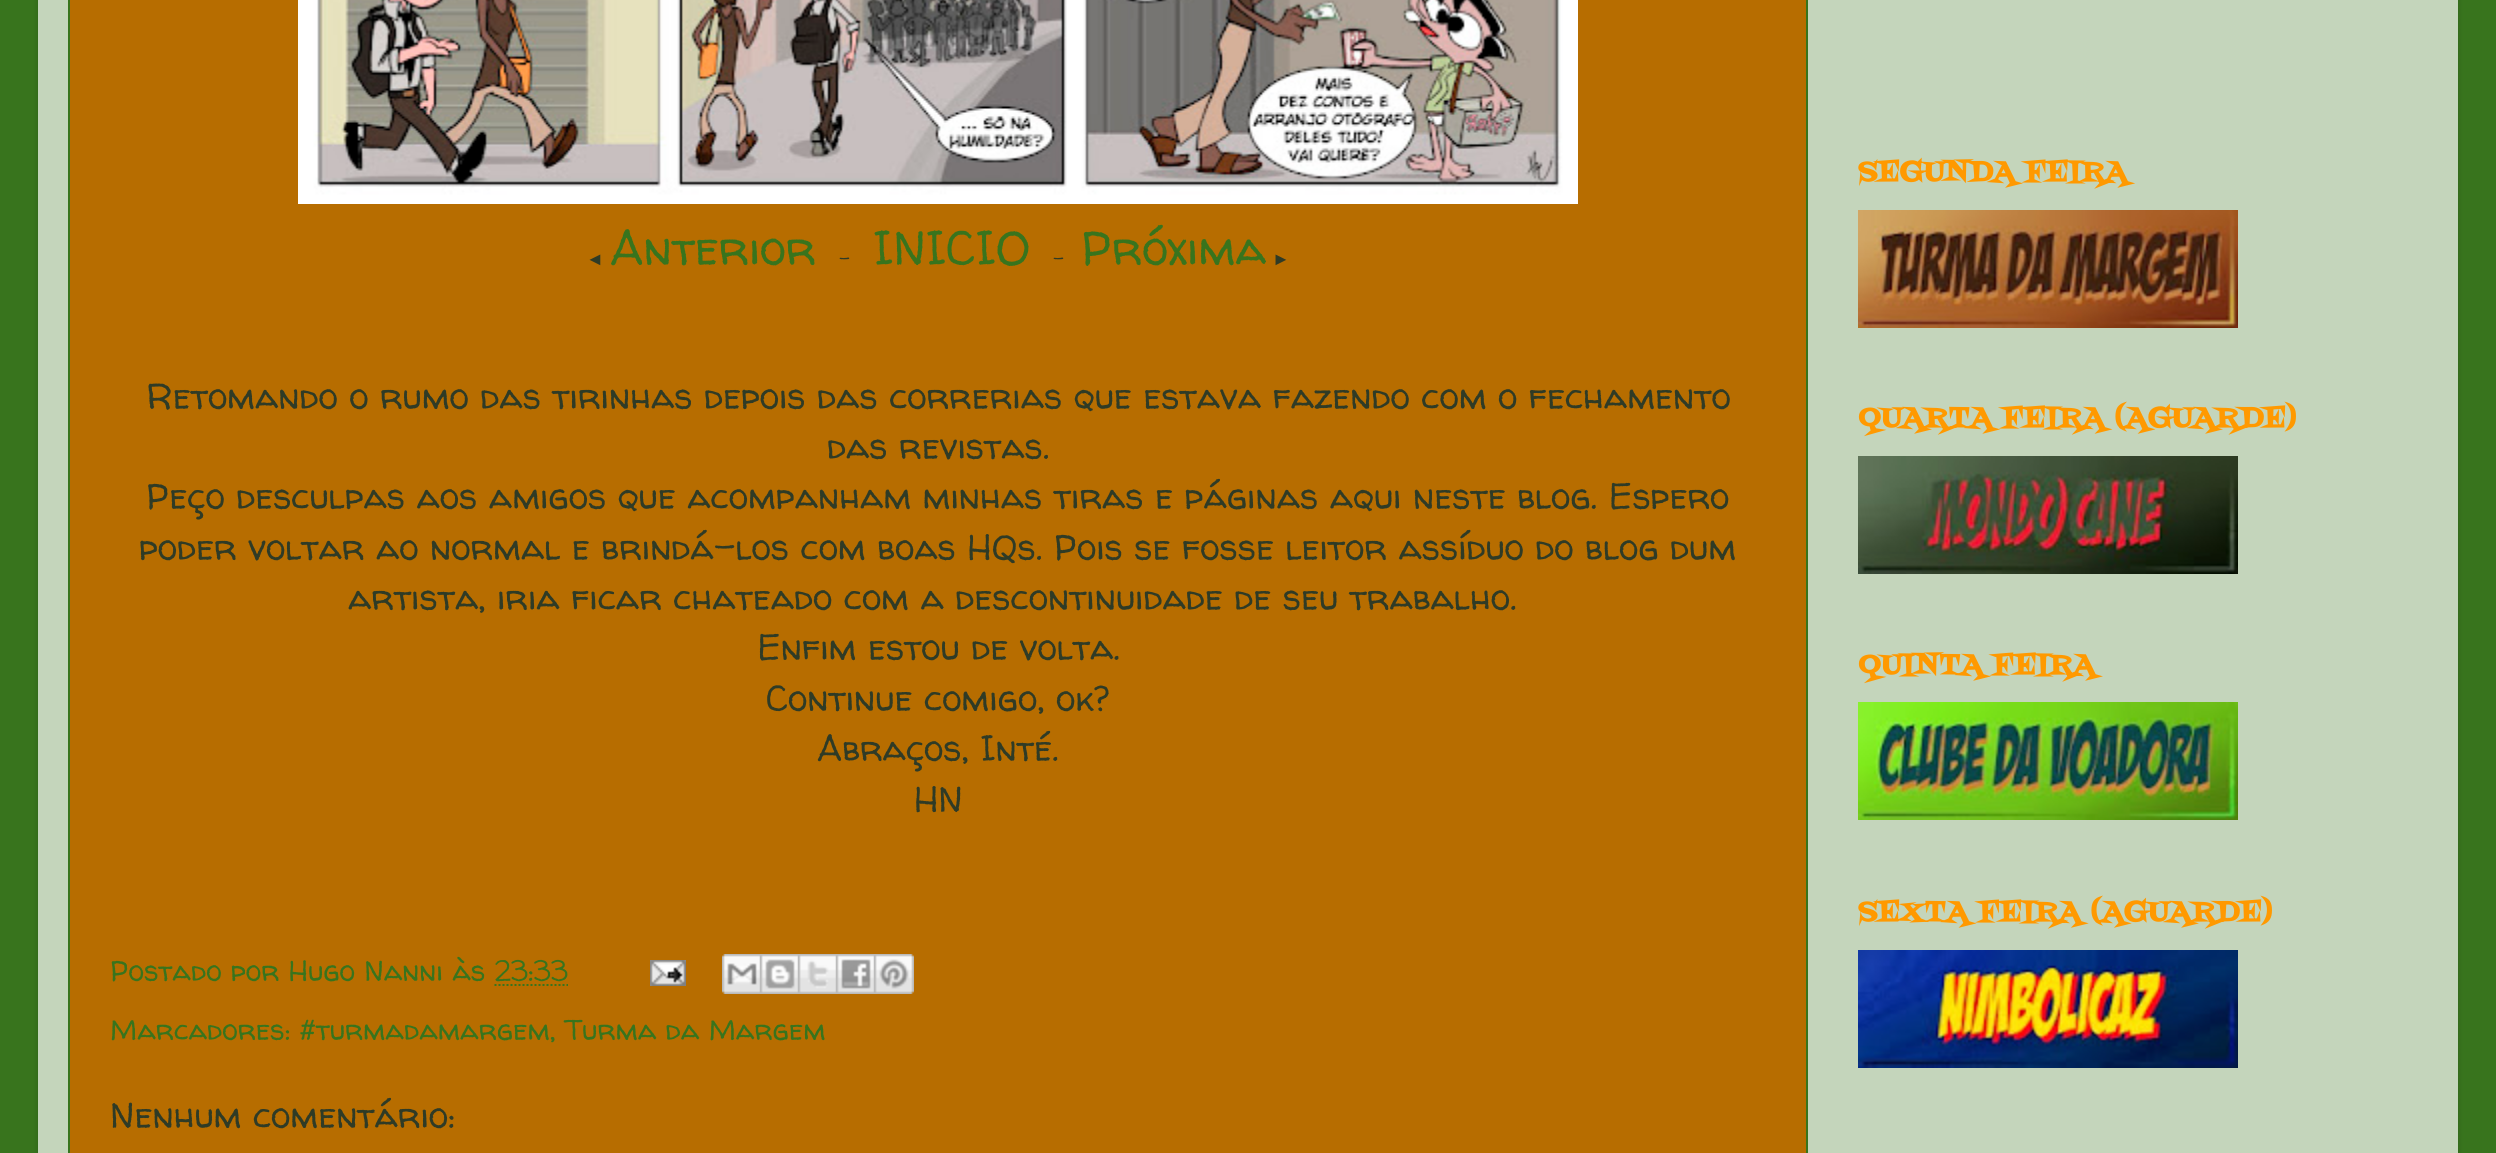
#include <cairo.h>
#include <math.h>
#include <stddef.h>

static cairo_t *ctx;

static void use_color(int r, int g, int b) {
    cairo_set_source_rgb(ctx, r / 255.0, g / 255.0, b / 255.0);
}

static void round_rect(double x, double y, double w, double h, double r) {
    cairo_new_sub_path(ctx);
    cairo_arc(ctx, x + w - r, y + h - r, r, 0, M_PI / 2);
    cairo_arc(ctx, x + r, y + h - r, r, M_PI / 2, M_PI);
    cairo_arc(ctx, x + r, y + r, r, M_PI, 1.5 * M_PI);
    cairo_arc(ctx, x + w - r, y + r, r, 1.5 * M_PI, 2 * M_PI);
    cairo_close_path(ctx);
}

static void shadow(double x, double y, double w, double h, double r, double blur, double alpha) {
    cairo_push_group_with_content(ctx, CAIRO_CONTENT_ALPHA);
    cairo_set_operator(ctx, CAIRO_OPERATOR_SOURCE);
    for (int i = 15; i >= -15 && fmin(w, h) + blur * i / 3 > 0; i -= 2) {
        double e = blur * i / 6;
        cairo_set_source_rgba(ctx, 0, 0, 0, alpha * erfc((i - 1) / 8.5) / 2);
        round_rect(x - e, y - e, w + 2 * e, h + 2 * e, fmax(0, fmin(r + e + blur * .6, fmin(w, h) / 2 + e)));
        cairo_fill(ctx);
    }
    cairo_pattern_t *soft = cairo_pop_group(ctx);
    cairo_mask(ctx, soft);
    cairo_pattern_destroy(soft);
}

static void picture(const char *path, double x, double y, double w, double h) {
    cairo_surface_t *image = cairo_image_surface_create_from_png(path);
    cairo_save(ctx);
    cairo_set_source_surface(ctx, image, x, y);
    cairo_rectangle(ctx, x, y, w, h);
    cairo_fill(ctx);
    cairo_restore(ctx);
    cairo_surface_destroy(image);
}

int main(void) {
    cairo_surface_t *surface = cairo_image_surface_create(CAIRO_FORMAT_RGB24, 2496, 1153);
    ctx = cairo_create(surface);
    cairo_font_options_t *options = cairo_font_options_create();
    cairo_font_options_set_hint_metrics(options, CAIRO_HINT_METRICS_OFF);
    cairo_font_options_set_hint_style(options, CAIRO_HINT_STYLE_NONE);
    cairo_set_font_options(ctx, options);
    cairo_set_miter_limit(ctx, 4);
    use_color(56, 116, 29);
    cairo_paint(ctx);
    use_color(0, 0, 0);
    shadow(38, -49, 2420, 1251, 40, 3, 0.15);
    use_color(196, 213, 187);
    cairo_rectangle(ctx, 38, 0, 2420, 1153);
    cairo_fill(ctx);
    use_color(183, 109, 0);
    cairo_rectangle(ctx, 69, -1, 1738, 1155);
    cairo_fill_preserve(ctx);
    use_color(56, 116, 29);
    cairo_stroke(ctx);
    picture("img1.png", 298, 0, 1280, 204);
    cairo_select_font_face(ctx, "Liberation Serif", CAIRO_FONT_SLANT_NORMAL, CAIRO_FONT_WEIGHT_NORMAL);
    cairo_set_font_size(ctx, 18);
    use_color(47, 59, 38);
    cairo_move_to(ctx, 586, 265);
    cairo_show_text(ctx, "◄");
    cairo_select_font_face(ctx, "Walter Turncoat", CAIRO_FONT_SLANT_NORMAL, CAIRO_FONT_WEIGHT_NORMAL);
    cairo_set_font_size(ctx, 48);
    use_color(56, 116, 29);
    cairo_move_to(ctx, 610, 265);
    cairo_show_text(ctx, "Anterior");
    cairo_set_font_size(ctx, 18);
    use_color(47, 59, 38);
    cairo_move_to(ctx, 839, 265);
    cairo_show_text(ctx, "-");
    cairo_set_font_size(ctx, 48);
    use_color(56, 116, 29);
    cairo_move_to(ctx, 873, 265);
    cairo_show_text(ctx, "INICIO");
    cairo_set_font_size(ctx, 18);
    use_color(47, 59, 38);
    cairo_move_to(ctx, 1053, 265);
    cairo_show_text(ctx, "-");
    cairo_set_font_size(ctx, 48);
    use_color(56, 116, 29);
    cairo_move_to(ctx, 1081, 265);
    cairo_show_text(ctx, "Próxima");
    cairo_select_font_face(ctx, "Liberation Serif", CAIRO_FONT_SLANT_NORMAL, CAIRO_FONT_WEIGHT_NORMAL);
    cairo_set_font_size(ctx, 18);
    use_color(47, 59, 38);
    cairo_move_to(ctx, 1272, 265);
    cairo_show_text(ctx, "►");
    use_color(183, 109, 0);
    cairo_rectangle(ctx, 1266, 261, 1, 1);
    cairo_fill(ctx);
    cairo_select_font_face(ctx, "Walter Turncoat", CAIRO_FONT_SLANT_NORMAL, CAIRO_FONT_WEIGHT_NORMAL);
    cairo_set_font_size(ctx, 36);
    use_color(47, 59, 38);
    cairo_move_to(ctx, 146, 409);
    cairo_show_text(ctx, "Retomando o rumo das tirinhas depois das correrias que estava fazendo com o fechamento");
    cairo_move_to(ctx, 827, 459);
    cairo_show_text(ctx, "das revistas.");
    cairo_move_to(ctx, 146, 509);
    cairo_show_text(ctx, "Peço desculpas aos amigos que acompanham minhas tiras e páginas aqui neste blog. Espero");
    cairo_move_to(ctx, 139, 560);
    cairo_show_text(ctx, "poder voltar ao normal e brindá-los com boas HQs. Pois se fosse leitor assíduo do blog dum");
    cairo_move_to(ctx, 348, 610);
    cairo_show_text(ctx, "artista, iria ficar chateado com a descontinuidade de seu trabalho.");
    cairo_move_to(ctx, 757, 660);
    cairo_show_text(ctx, "Enfim estou de volta.");
    cairo_move_to(ctx, 766, 711);
    cairo_show_text(ctx, "Continue comigo, ok?");
    cairo_move_to(ctx, 817, 761);
    cairo_show_text(ctx, "Abraços, Inté.");
    cairo_move_to(ctx, 914, 812);
    cairo_show_text(ctx, "HN");
    cairo_set_font_size(ctx, 28.8);
    use_color(56, 116, 29);
    cairo_move_to(ctx, 110, 981);
    cairo_show_text(ctx, "Postado por Hugo Nanni às 23:33");
    picture("img2.png", 650, 960, 36, 26);
    picture("img3.png", 722, 954, 38, 40);
    picture("img4.png", 760, 954, 38, 40);
    picture("img5.png", 798, 954, 38, 40);
    picture("img6.png", 836, 954, 38, 40);
    picture("img7.png", 874, 954, 40, 40);
    cairo_new_path(ctx);
    cairo_move_to(ctx, 494.5, 985);
    cairo_line_to(ctx, 568, 985);
    cairo_set_dash(ctx, (double[]){2, 2}, 2, 0);
    cairo_stroke(ctx);
    cairo_move_to(ctx, 110, 1040);
    cairo_show_text(ctx, "Marcadores: #turmadamargem, Turma da Margem");
    cairo_set_font_size(ctx, 36);
    use_color(47, 59, 38);
    cairo_move_to(ctx, 110, 1128);
    cairo_show_text(ctx, "Nenhum comentário:");
    cairo_select_font_face(ctx, "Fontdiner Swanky", CAIRO_FONT_SLANT_NORMAL, CAIRO_FONT_WEIGHT_BOLD);
    cairo_set_font_size(ctx, 28.8);
    use_color(255, 153, 0);
    cairo_move_to(ctx, 1858, 181);
    cairo_show_text(ctx, "SEGUNDA FEIRA");
    picture("img8.png", 1858, 210, 380, 118);
    cairo_move_to(ctx, 1858, 427);
    cairo_show_text(ctx, "QUARTA FEIRA (AGUARDE)");
    picture("img9.png", 1858, 456, 380, 118);
    cairo_move_to(ctx, 1858, 674);
    cairo_show_text(ctx, "QUINTA FEIRA");
    picture("img10.png", 1858, 702, 380, 118);
    cairo_move_to(ctx, 1858, 921);
    cairo_show_text(ctx, "SEXTA FEIRA (AGUARDE)");
    picture("img11.png", 1858, 950, 380, 118);
    cairo_surface_write_to_png(surface, "result.png");
    cairo_font_options_destroy(options);
    cairo_destroy(ctx);
    cairo_surface_destroy(surface);
    return 0;
}
